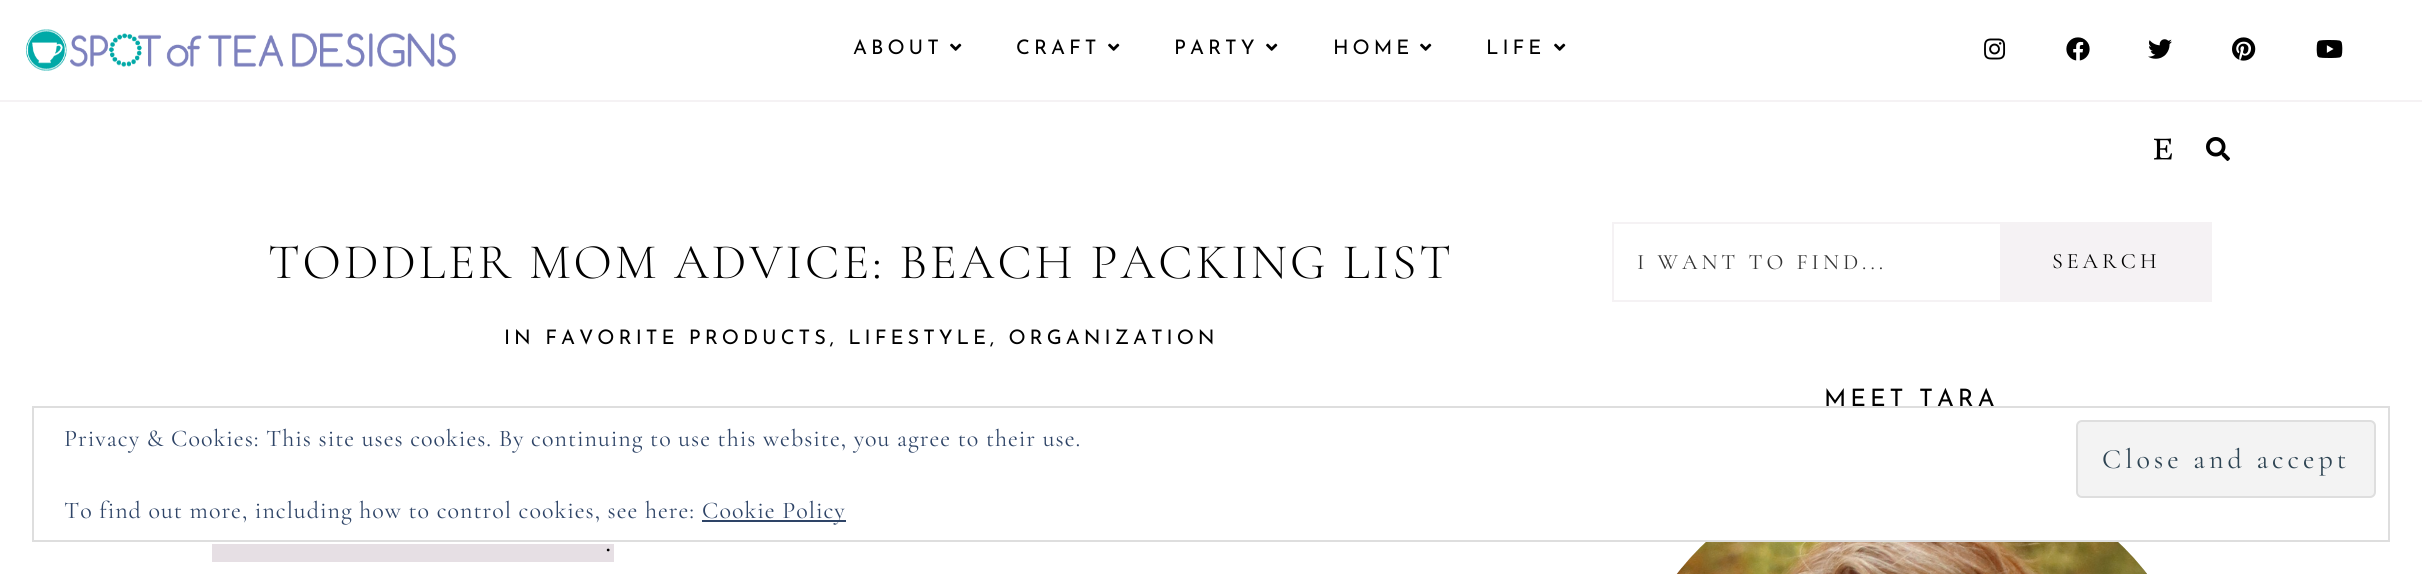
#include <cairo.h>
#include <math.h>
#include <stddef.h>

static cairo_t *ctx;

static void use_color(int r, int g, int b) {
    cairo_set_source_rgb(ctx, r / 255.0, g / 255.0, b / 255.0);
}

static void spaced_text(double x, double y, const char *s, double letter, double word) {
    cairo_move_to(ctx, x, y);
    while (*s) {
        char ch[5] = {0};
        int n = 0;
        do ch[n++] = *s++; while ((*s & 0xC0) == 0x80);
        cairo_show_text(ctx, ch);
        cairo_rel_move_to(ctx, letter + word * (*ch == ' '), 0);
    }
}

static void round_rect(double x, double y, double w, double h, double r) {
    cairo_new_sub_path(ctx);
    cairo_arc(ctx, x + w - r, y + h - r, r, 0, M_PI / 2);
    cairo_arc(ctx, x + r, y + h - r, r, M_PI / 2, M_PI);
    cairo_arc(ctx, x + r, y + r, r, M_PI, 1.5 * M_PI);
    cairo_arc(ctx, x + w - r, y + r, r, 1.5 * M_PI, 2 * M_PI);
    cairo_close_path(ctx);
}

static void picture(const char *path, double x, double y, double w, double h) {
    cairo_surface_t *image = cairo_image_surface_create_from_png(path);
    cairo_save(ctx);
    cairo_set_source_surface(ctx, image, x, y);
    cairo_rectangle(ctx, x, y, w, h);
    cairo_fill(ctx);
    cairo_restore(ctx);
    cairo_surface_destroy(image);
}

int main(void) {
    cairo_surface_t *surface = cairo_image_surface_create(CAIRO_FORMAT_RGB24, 2422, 574);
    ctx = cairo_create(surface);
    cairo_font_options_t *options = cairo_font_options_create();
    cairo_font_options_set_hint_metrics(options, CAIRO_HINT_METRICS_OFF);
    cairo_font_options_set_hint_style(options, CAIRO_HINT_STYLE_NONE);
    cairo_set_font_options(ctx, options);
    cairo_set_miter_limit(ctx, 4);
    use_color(255, 255, 255);
    cairo_paint(ctx);
    use_color(245, 242, 244);
    cairo_rectangle(ctx, 0, 100, 2422, 2);
    cairo_fill(ctx);
    picture("img1.png", 26, 29, 430, 42);
    cairo_select_font_face(ctx, "Josefin Sans", CAIRO_FONT_SLANT_NORMAL, CAIRO_FONT_WEIGHT_NORMAL);
    cairo_set_font_size(ctx, 20);
    use_color(0, 0, 0);
    spaced_text(853, 54, "ABOUT", 4, 0);
    picture("img2.png", 950, 43, 12, 8);
    spaced_text(1016, 54, "CRAFT", 4, 0);
    picture("img2.png", 1108, 43, 12, 8);
    spaced_text(1174, 54, "PARTY", 4, 0);
    picture("img2.png", 1266, 43, 12, 8);
    spaced_text(1333, 54, "HOME", 4, 0);
    picture("img2.png", 1420, 43, 12, 8);
    spaced_text(1486, 54, "LIFE", 4, 0);
    picture("img2.png", 1554, 43, 12, 8);
    picture("img3.png", 1984, 38, 22, 22);
    picture("img4.png", 2066, 37, 24, 24);
    picture("img5.png", 2148, 39, 24, 20);
    picture("img6.png", 2232, 37, 24, 24);
    picture("img7.png", 2316, 40, 27, 18);
    picture("img8.png", 2154, 138, 18, 22);
    picture("img9.png", 2206, 137, 24, 24);
    cairo_select_font_face(ctx, "Cormorant Garamond Light", CAIRO_FONT_SLANT_NORMAL, CAIRO_FONT_WEIGHT_NORMAL);
    cairo_set_font_size(ctx, 50);
    spaced_text(268, 278, "TODDLER MOM ADVICE: BEACH PACKING LIST", 3, 0);
    cairo_select_font_face(ctx, "Josefin Sans", CAIRO_FONT_SLANT_NORMAL, CAIRO_FONT_WEIGHT_NORMAL);
    cairo_set_font_size(ctx, 20);
    spaced_text(504, 344, "IN FAVORITE PRODUCTS, LIFESTYLE, ORGANIZATION", 4, 0);
    use_color(230, 223, 228);
    cairo_rectangle(ctx, 212, 544, 402, 18);
    cairo_fill(ctx);
    cairo_select_font_face(ctx, "Cormorant Garamond", CAIRO_FONT_SLANT_ITALIC, CAIRO_FONT_WEIGHT_NORMAL);
    cairo_set_font_size(ctx, 32);
    use_color(0, 0, 0);
    spaced_text(606, 551, ".", 1, 0);
    cairo_rectangle(ctx, 1613, 223, 388, 78);
    use_color(245, 242, 244);
    cairo_stroke(ctx);
    cairo_select_font_face(ctx, "Cormorant Garamond", CAIRO_FONT_SLANT_NORMAL, CAIRO_FONT_WEIGHT_NORMAL);
    cairo_set_font_size(ctx, 22);
    use_color(51, 51, 51);
    spaced_text(1637, 269, "I WANT TO FIND...", 4, 0);
    use_color(245, 242, 244);
    cairo_rectangle(ctx, 2002, 222, 210, 80);
    cairo_fill(ctx);
    use_color(0, 0, 0);
    spaced_text(2052, 268, "SEARCH", 4, 0);
    cairo_select_font_face(ctx, "Josefin Sans", CAIRO_FONT_SLANT_NORMAL, CAIRO_FONT_WEIGHT_NORMAL);
    cairo_set_font_size(ctx, 24);
    spaced_text(1824, 406, "MEET TARA", 4, 0);
    picture("img10.png", 1676, 542, 471, 32);
    cairo_rectangle(ctx, 33, 407, 2356, 134);
    use_color(222, 222, 222);
    cairo_stroke(ctx);
    cairo_select_font_face(ctx, "Cormorant Garamond", CAIRO_FONT_SLANT_NORMAL, CAIRO_FONT_WEIGHT_NORMAL);
    use_color(46, 68, 103);
    spaced_text(64, 446, "Privacy & Cookies: This site uses cookies. By continuing to use this website, you agree to their use.", 1, 0);
    use_color(243, 243, 243);
    round_rect(2077, 421, 298, 76, 5);
    cairo_fill_preserve(ctx);
    use_color(222, 222, 222);
    cairo_stroke(ctx);
    cairo_set_font_size(ctx, 28);
    use_color(46, 68, 83);
    spaced_text(2102, 468, "Close and accept", 4, 0);
    cairo_set_font_size(ctx, 24);
    use_color(46, 68, 103);
    spaced_text(64, 518, "To find out more, including how to control cookies, see here:", 1, 0);
    cairo_rectangle(ctx, 702, 520, 144, 2);
    cairo_fill(ctx);
    spaced_text(702, 518, "Cookie Policy", 1, 0);
    cairo_surface_write_to_png(surface, "result.png");
    cairo_font_options_destroy(options);
    cairo_destroy(ctx);
    cairo_surface_destroy(surface);
    return 0;
}
